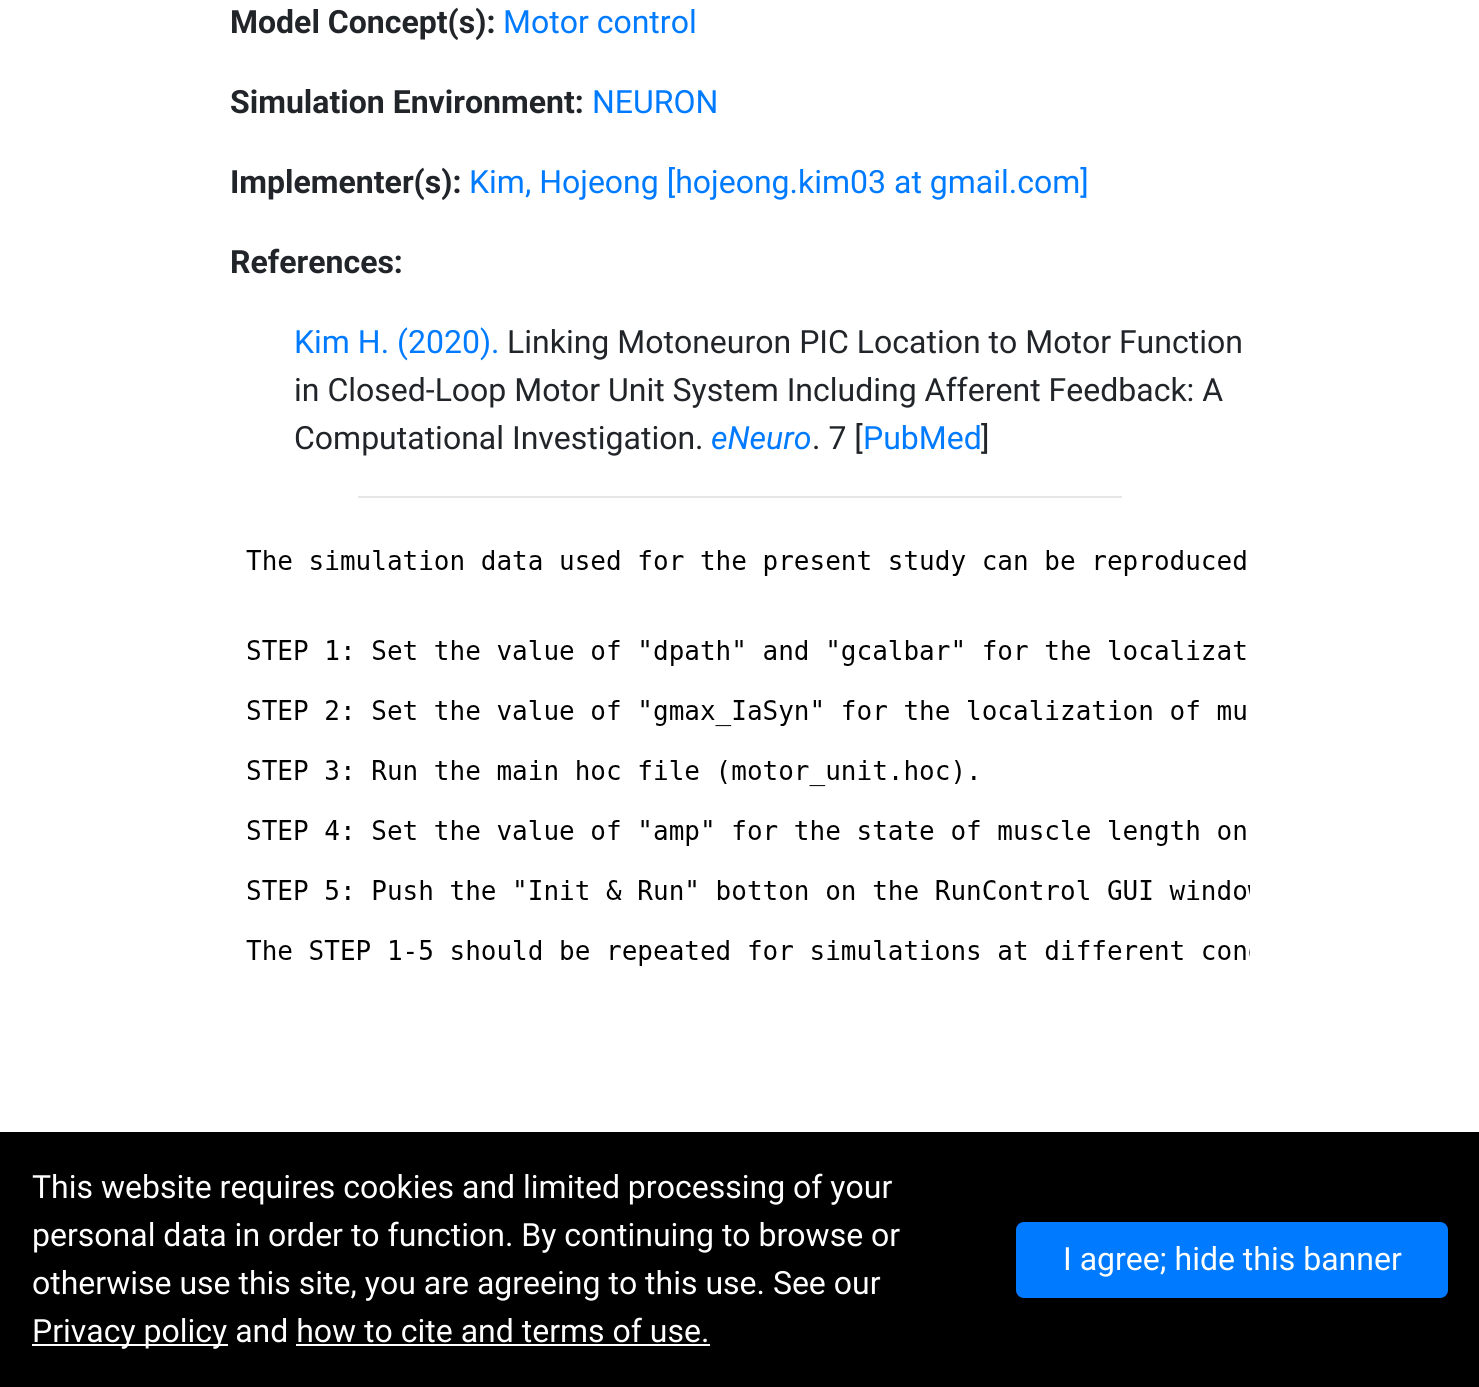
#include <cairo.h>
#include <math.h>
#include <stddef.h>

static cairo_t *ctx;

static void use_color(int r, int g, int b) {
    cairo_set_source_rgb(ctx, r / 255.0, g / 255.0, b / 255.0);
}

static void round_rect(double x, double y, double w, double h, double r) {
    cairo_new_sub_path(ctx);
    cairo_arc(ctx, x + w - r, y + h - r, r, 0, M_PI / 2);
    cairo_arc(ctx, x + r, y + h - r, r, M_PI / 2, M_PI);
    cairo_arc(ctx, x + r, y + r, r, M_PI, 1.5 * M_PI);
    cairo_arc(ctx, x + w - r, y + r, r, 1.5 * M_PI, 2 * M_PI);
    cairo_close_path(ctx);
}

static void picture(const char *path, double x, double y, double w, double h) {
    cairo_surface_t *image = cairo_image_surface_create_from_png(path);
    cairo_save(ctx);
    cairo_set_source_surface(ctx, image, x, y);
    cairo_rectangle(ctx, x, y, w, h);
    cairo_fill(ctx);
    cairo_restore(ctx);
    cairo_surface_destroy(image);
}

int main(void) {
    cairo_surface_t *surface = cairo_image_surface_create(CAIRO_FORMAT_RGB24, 1479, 1387);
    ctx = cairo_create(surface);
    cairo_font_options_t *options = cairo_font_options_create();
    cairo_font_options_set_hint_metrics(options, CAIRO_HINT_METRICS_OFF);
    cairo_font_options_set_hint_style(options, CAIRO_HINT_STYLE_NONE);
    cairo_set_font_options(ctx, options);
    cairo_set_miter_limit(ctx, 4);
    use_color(255, 255, 255);
    cairo_paint(ctx);
    cairo_select_font_face(ctx, "Roboto", CAIRO_FONT_SLANT_NORMAL, CAIRO_FONT_WEIGHT_BOLD);
    cairo_set_font_size(ctx, 32);
    use_color(33, 37, 41);
    cairo_move_to(ctx, 230, 33);
    cairo_show_text(ctx, "Model Concept(s):");
    cairo_select_font_face(ctx, "Roboto", CAIRO_FONT_SLANT_NORMAL, CAIRO_FONT_WEIGHT_NORMAL);
    use_color(0, 123, 255);
    cairo_move_to(ctx, 503, 33);
    cairo_show_text(ctx, "Motor control");
    cairo_select_font_face(ctx, "Roboto", CAIRO_FONT_SLANT_NORMAL, CAIRO_FONT_WEIGHT_BOLD);
    use_color(33, 37, 41);
    cairo_move_to(ctx, 230, 113);
    cairo_show_text(ctx, "Simulation Environment:");
    cairo_select_font_face(ctx, "Roboto", CAIRO_FONT_SLANT_NORMAL, CAIRO_FONT_WEIGHT_NORMAL);
    use_color(0, 123, 255);
    cairo_move_to(ctx, 592, 113);
    cairo_show_text(ctx, "NEURON");
    cairo_select_font_face(ctx, "Roboto", CAIRO_FONT_SLANT_NORMAL, CAIRO_FONT_WEIGHT_BOLD);
    use_color(33, 37, 41);
    cairo_move_to(ctx, 230, 193);
    cairo_show_text(ctx, "Implementer(s):");
    cairo_select_font_face(ctx, "Roboto", CAIRO_FONT_SLANT_NORMAL, CAIRO_FONT_WEIGHT_NORMAL);
    use_color(0, 123, 255);
    cairo_move_to(ctx, 469, 193);
    cairo_show_text(ctx, "Kim, Hojeong [hojeong.kim03 at gmail.com]");
    cairo_select_font_face(ctx, "Roboto", CAIRO_FONT_SLANT_NORMAL, CAIRO_FONT_WEIGHT_BOLD);
    use_color(33, 37, 41);
    cairo_move_to(ctx, 230, 273);
    cairo_show_text(ctx, "References:");
    cairo_select_font_face(ctx, "Roboto", CAIRO_FONT_SLANT_NORMAL, CAIRO_FONT_WEIGHT_NORMAL);
    use_color(0, 123, 255);
    cairo_move_to(ctx, 294, 353);
    cairo_show_text(ctx, "Kim H. (2020).");
    use_color(33, 37, 41);
    cairo_move_to(ctx, 507, 353);
    cairo_show_text(ctx, "Linking Motoneuron PIC Location to Motor Function");
    cairo_move_to(ctx, 294, 401);
    cairo_show_text(ctx, "in Closed-Loop Motor Unit System Including Afferent Feedback: A");
    cairo_move_to(ctx, 294, 449);
    cairo_show_text(ctx, "Computational Investigation.");
    cairo_select_font_face(ctx, "Roboto", CAIRO_FONT_SLANT_ITALIC, CAIRO_FONT_WEIGHT_NORMAL);
    use_color(0, 123, 255);
    cairo_move_to(ctx, 711, 449);
    cairo_show_text(ctx, "eNeuro");
    cairo_select_font_face(ctx, "Roboto", CAIRO_FONT_SLANT_NORMAL, CAIRO_FONT_WEIGHT_NORMAL);
    use_color(33, 37, 41);
    cairo_move_to(ctx, 812, 449);
    cairo_show_text(ctx, ". 7 [");
    use_color(0, 123, 255);
    cairo_move_to(ctx, 863, 449);
    cairo_show_text(ctx, "PubMed");
    use_color(33, 37, 41);
    cairo_move_to(ctx, 981, 449);
    cairo_show_text(ctx, "]");
    use_color(230, 230, 230);
    cairo_rectangle(ctx, 358, 496, 764, 2);
    cairo_fill(ctx);
    picture("img1.png", 246, 550, 1004, 416);
    use_color(0, 0, 0);
    cairo_rectangle(ctx, 0, 1132, 1479, 255);
    cairo_fill(ctx);
    use_color(255, 255, 255);
    cairo_move_to(ctx, 32, 1198);
    cairo_show_text(ctx, "This website requires cookies and limited processing of your");
    cairo_move_to(ctx, 32, 1246);
    cairo_show_text(ctx, "personal data in order to function. By continuing to browse or");
    cairo_move_to(ctx, 32, 1294);
    cairo_show_text(ctx, "otherwise use this site, you are agreeing to this use. See our");
    cairo_rectangle(ctx, 32, 1344, 196, 2);
    cairo_fill(ctx);
    cairo_move_to(ctx, 32, 1342);
    cairo_show_text(ctx, "Privacy policy and how to cite and terms of use.");
    cairo_rectangle(ctx, 296, 1344, 414, 2);
    cairo_fill(ctx);
    use_color(0, 123, 255);
    round_rect(1017, 1223, 430, 74, 7);
    cairo_fill_preserve(ctx);
    cairo_stroke(ctx);
    use_color(255, 255, 255);
    cairo_move_to(ctx, 1063, 1270);
    cairo_show_text(ctx, "I agree; hide this banner");
    cairo_surface_write_to_png(surface, "result.png");
    cairo_font_options_destroy(options);
    cairo_destroy(ctx);
    cairo_surface_destroy(surface);
    return 0;
}
